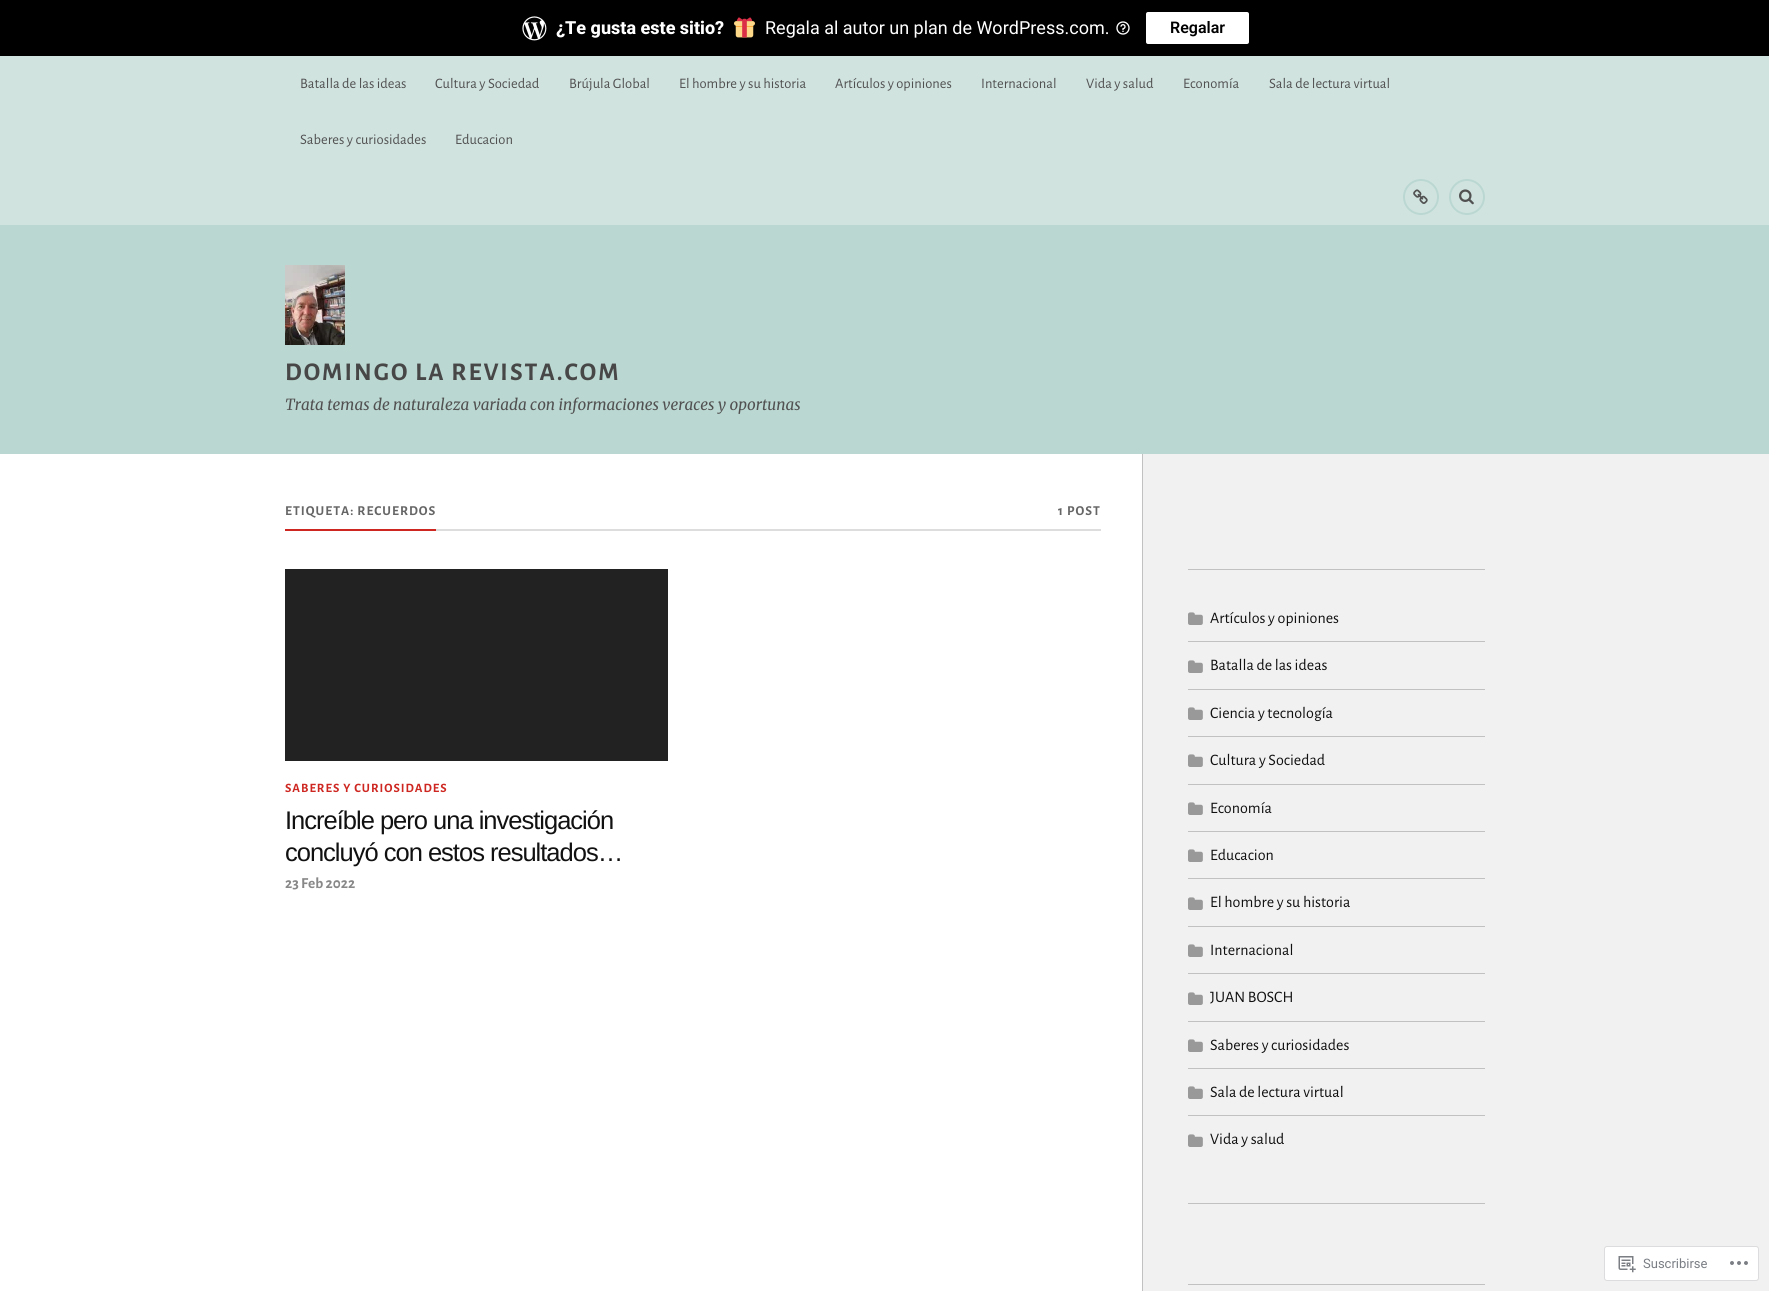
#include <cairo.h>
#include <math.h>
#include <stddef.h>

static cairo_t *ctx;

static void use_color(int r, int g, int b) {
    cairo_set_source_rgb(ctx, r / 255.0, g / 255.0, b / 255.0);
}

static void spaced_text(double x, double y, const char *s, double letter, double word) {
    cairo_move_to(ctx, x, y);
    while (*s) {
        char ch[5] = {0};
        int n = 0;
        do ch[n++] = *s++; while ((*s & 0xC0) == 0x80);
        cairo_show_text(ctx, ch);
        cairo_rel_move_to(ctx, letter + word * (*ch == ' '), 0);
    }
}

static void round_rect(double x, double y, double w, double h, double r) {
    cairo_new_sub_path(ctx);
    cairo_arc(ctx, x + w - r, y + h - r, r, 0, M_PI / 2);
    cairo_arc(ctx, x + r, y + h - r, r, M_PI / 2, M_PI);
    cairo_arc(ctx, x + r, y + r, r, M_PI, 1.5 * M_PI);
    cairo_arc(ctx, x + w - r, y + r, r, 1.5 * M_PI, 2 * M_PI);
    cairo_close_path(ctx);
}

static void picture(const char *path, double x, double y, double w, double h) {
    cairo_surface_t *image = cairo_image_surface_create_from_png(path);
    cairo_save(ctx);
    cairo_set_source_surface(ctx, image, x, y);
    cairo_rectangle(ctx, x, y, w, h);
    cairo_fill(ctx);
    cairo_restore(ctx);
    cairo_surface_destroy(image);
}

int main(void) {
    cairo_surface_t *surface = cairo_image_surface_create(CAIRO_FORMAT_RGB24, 1769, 1291);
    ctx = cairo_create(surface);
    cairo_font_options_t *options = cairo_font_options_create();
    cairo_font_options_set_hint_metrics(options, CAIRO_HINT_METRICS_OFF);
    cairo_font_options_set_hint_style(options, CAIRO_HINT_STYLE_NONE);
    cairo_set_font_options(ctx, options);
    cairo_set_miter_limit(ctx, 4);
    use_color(241, 241, 241);
    cairo_paint(ctx);
    use_color(0, 0, 0);
    cairo_rectangle(ctx, 0, 0, 1769, 56);
    cairo_fill(ctx);
    picture("img1.png", 522, 16, 25, 25);
    cairo_select_font_face(ctx, "Roboto ExtraBold", CAIRO_FONT_SLANT_NORMAL, CAIRO_FONT_WEIGHT_NORMAL);
    cairo_set_font_size(ctx, 18);
    use_color(255, 255, 255);
    cairo_move_to(ctx, 556, 34);
    cairo_show_text(ctx, "¿Te gusta este sitio?");
    picture("img2.png", 734, 17, 21, 21);
    cairo_select_font_face(ctx, "Roboto", CAIRO_FONT_SLANT_NORMAL, CAIRO_FONT_WEIGHT_NORMAL);
    cairo_move_to(ctx, 765, 34);
    cairo_show_text(ctx, "Regala al autor un plan de WordPress.com.");
    picture("img3.png", 1116, 21, 14, 14);
    round_rect(1146, 12, 103, 32, 2);
    cairo_fill(ctx);
    cairo_select_font_face(ctx, "Roboto SemiBold", CAIRO_FONT_SLANT_NORMAL, CAIRO_FONT_WEIGHT_NORMAL);
    cairo_set_font_size(ctx, 16);
    use_color(0, 0, 0);
    cairo_move_to(ctx, 1170, 33);
    cairo_show_text(ctx, "Regalar");
    use_color(208, 227, 223);
    cairo_rectangle(ctx, 0, 56, 1769, 169);
    cairo_fill(ctx);
    cairo_select_font_face(ctx, "Alegreya Sans", CAIRO_FONT_SLANT_NORMAL, CAIRO_FONT_WEIGHT_NORMAL);
    cairo_set_font_size(ctx, 14.5);
    use_color(81, 81, 81);
    cairo_move_to(ctx, 300, 88);
    cairo_show_text(ctx, "Batalla de las ideas");
    cairo_move_to(ctx, 435, 88);
    cairo_show_text(ctx, "Cultura y Sociedad");
    cairo_move_to(ctx, 569, 88);
    cairo_show_text(ctx, "Brújula Global");
    cairo_move_to(ctx, 679, 88);
    cairo_show_text(ctx, "El hombre y su historia");
    cairo_move_to(ctx, 835, 88);
    cairo_show_text(ctx, "Artículos y opiniones");
    cairo_move_to(ctx, 981, 88);
    cairo_show_text(ctx, "Internacional");
    cairo_move_to(ctx, 1086, 88);
    cairo_show_text(ctx, "Vida y salud");
    cairo_move_to(ctx, 1183, 88);
    cairo_show_text(ctx, "Economía");
    cairo_move_to(ctx, 1269, 88);
    cairo_show_text(ctx, "Sala de lectura virtual");
    cairo_move_to(ctx, 300, 144);
    cairo_show_text(ctx, "Saberes y curiosidades");
    cairo_move_to(ctx, 455, 144);
    cairo_show_text(ctx, "Educacion");
    cairo_new_path(ctx);
    cairo_arc(ctx, 1421, 197, 17, 0, 2 * M_PI);
    use_color(187, 215, 209);
    cairo_stroke(ctx);
    picture("img4.png", 1413, 189, 15, 15);
    cairo_arc(ctx, 1467, 197, 17, 0, 2 * M_PI);
    cairo_stroke(ctx);
    picture("img5.png", 1459, 189, 15, 16);
    cairo_rectangle(ctx, 0, 225, 1769, 229);
    cairo_fill(ctx);
    picture("img6.png", 285, 265, 60, 80);
    cairo_select_font_face(ctx, "Alegreya Sans", CAIRO_FONT_SLANT_NORMAL, CAIRO_FONT_WEIGHT_BOLD);
    cairo_set_font_size(ctx, 25.5);
    use_color(71, 71, 71);
    spaced_text(285, 380, "DOMINGO LA REVISTA.COM", 2, 0);
    cairo_select_font_face(ctx, "Merriweather Light", CAIRO_FONT_SLANT_ITALIC, CAIRO_FONT_WEIGHT_NORMAL);
    cairo_set_font_size(ctx, 15.3);
    use_color(81, 81, 81);
    cairo_move_to(ctx, 285, 410);
    cairo_show_text(ctx, "Trata temas de naturaleza variada con informaciones veraces y oportunas");
    use_color(255, 255, 255);
    cairo_rectangle(ctx, 0, 454, 1142, 837);
    cairo_fill(ctx);
    use_color(221, 221, 221);
    cairo_rectangle(ctx, 436, 529, 665, 2);
    cairo_fill(ctx);
    use_color(206, 39, 33);
    cairo_rectangle(ctx, 285, 529, 151, 2);
    cairo_fill(ctx);
    cairo_select_font_face(ctx, "Alegreya Sans", CAIRO_FONT_SLANT_NORMAL, CAIRO_FONT_WEIGHT_BOLD);
    cairo_set_font_size(ctx, 13.6);
    use_color(102, 102, 102);
    spaced_text(285, 515, "ETIQUETA: RECUERDOS", 1, 0);
    spaced_text(1058, 515, "1 POST", 1, 0);
    use_color(34, 34, 34);
    cairo_rectangle(ctx, 285, 569, 383, 192);
    cairo_fill(ctx);
    cairo_set_font_size(ctx, 12.75);
    use_color(206, 39, 33);
    spaced_text(285, 792, "SABERES Y CURIOSIDADES", 1, 0);
    cairo_select_font_face(ctx, "Arimo", CAIRO_FONT_SLANT_NORMAL, CAIRO_FONT_WEIGHT_NORMAL);
    cairo_set_font_size(ctx, 25.5);
    use_color(17, 17, 17);
    spaced_text(285, 829, "Increíble pero una investigación", -1, 0);
    spaced_text(285, 861, "concluyó con estos resultados…", -1, 0);
    cairo_select_font_face(ctx, "Alegreya Sans", CAIRO_FONT_SLANT_NORMAL, CAIRO_FONT_WEIGHT_BOLD);
    cairo_set_font_size(ctx, 15.3);
    use_color(136, 136, 136);
    cairo_move_to(ctx, 285, 888);
    cairo_show_text(ctx, "23 Feb 2022");
    use_color(193, 193, 193);
    cairo_rectangle(ctx, 1142, 454, 1, 837);
    cairo_fill(ctx);
    cairo_rectangle(ctx, 1188, 569, 297, 1);
    cairo_fill(ctx);
    cairo_rectangle(ctx, 1188, 641, 297, 1);
    cairo_fill(ctx);
    picture("img7.png", 1188, 612, 15, 13);
    cairo_select_font_face(ctx, "Alegreya Sans", CAIRO_FONT_SLANT_NORMAL, CAIRO_FONT_WEIGHT_NORMAL);
    cairo_set_font_size(ctx, 16);
    use_color(17, 17, 17);
    cairo_move_to(ctx, 1210, 623);
    cairo_show_text(ctx, "Artículos y opiniones");
    use_color(193, 193, 193);
    cairo_rectangle(ctx, 1188, 689, 297, 1);
    cairo_fill(ctx);
    picture("img7.png", 1188, 660, 15, 13);
    use_color(17, 17, 17);
    cairo_move_to(ctx, 1210, 670);
    cairo_show_text(ctx, "Batalla de las ideas");
    use_color(193, 193, 193);
    cairo_rectangle(ctx, 1188, 736, 297, 1);
    cairo_fill(ctx);
    picture("img7.png", 1188, 707, 15, 13);
    use_color(17, 17, 17);
    cairo_move_to(ctx, 1210, 718);
    cairo_show_text(ctx, "Ciencia y tecnología");
    use_color(193, 193, 193);
    cairo_rectangle(ctx, 1188, 784, 297, 1);
    cairo_fill(ctx);
    picture("img7.png", 1188, 754, 15, 13);
    use_color(17, 17, 17);
    cairo_move_to(ctx, 1210, 765);
    cairo_show_text(ctx, "Cultura y Sociedad");
    use_color(193, 193, 193);
    cairo_rectangle(ctx, 1188, 831, 297, 1);
    cairo_fill(ctx);
    picture("img7.png", 1188, 802, 15, 13);
    use_color(17, 17, 17);
    cairo_move_to(ctx, 1210, 813);
    cairo_show_text(ctx, "Economía");
    use_color(193, 193, 193);
    cairo_rectangle(ctx, 1188, 878, 297, 1);
    cairo_fill(ctx);
    picture("img7.png", 1188, 849, 15, 13);
    use_color(17, 17, 17);
    cairo_move_to(ctx, 1210, 860);
    cairo_show_text(ctx, "Educacion");
    use_color(193, 193, 193);
    cairo_rectangle(ctx, 1188, 926, 297, 1);
    cairo_fill(ctx);
    picture("img7.png", 1188, 897, 15, 13);
    use_color(17, 17, 17);
    cairo_move_to(ctx, 1210, 907);
    cairo_show_text(ctx, "El hombre y su historia");
    use_color(193, 193, 193);
    cairo_rectangle(ctx, 1188, 973, 297, 1);
    cairo_fill(ctx);
    picture("img7.png", 1188, 944, 15, 13);
    use_color(17, 17, 17);
    cairo_move_to(ctx, 1210, 955);
    cairo_show_text(ctx, "Internacional");
    use_color(193, 193, 193);
    cairo_rectangle(ctx, 1188, 1021, 297, 1);
    cairo_fill(ctx);
    picture("img7.png", 1188, 992, 15, 13);
    use_color(17, 17, 17);
    cairo_move_to(ctx, 1210, 1002);
    cairo_show_text(ctx, "JUAN BOSCH");
    use_color(193, 193, 193);
    cairo_rectangle(ctx, 1188, 1068, 297, 1);
    cairo_fill(ctx);
    picture("img7.png", 1188, 1039, 15, 13);
    use_color(17, 17, 17);
    cairo_move_to(ctx, 1210, 1050);
    cairo_show_text(ctx, "Saberes y curiosidades");
    use_color(193, 193, 193);
    cairo_rectangle(ctx, 1188, 1115, 297, 1);
    cairo_fill(ctx);
    picture("img7.png", 1188, 1086, 15, 13);
    use_color(17, 17, 17);
    cairo_move_to(ctx, 1210, 1097);
    cairo_show_text(ctx, "Sala de lectura virtual");
    picture("img7.png", 1188, 1134, 15, 13);
    cairo_move_to(ctx, 1210, 1144);
    cairo_show_text(ctx, "Vida y salud");
    use_color(193, 193, 193);
    cairo_rectangle(ctx, 1188, 1203, 297, 1);
    cairo_fill(ctx);
    cairo_rectangle(ctx, 1188, 1284, 297, 1);
    cairo_fill(ctx);
    use_color(255, 255, 255);
    round_rect(1604.5, 1246.5, 154, 34, 2.5);
    cairo_fill_preserve(ctx);
    use_color(220, 220, 222);
    cairo_set_line_width(ctx, 1);
    cairo_stroke(ctx);
    picture("img8.png", 1618, 1256, 18, 17);
    cairo_select_font_face(ctx, "Roboto", CAIRO_FONT_SLANT_NORMAL, CAIRO_FONT_WEIGHT_NORMAL);
    cairo_set_font_size(ctx, 13);
    use_color(122, 126, 132);
    cairo_move_to(ctx, 1643, 1268);
    cairo_show_text(ctx, "Suscribirse");
    picture("img9.png", 1730, 1261, 18, 4);
    cairo_surface_write_to_png(surface, "result.png");
    cairo_font_options_destroy(options);
    cairo_destroy(ctx);
    cairo_surface_destroy(surface);
    return 0;
}
